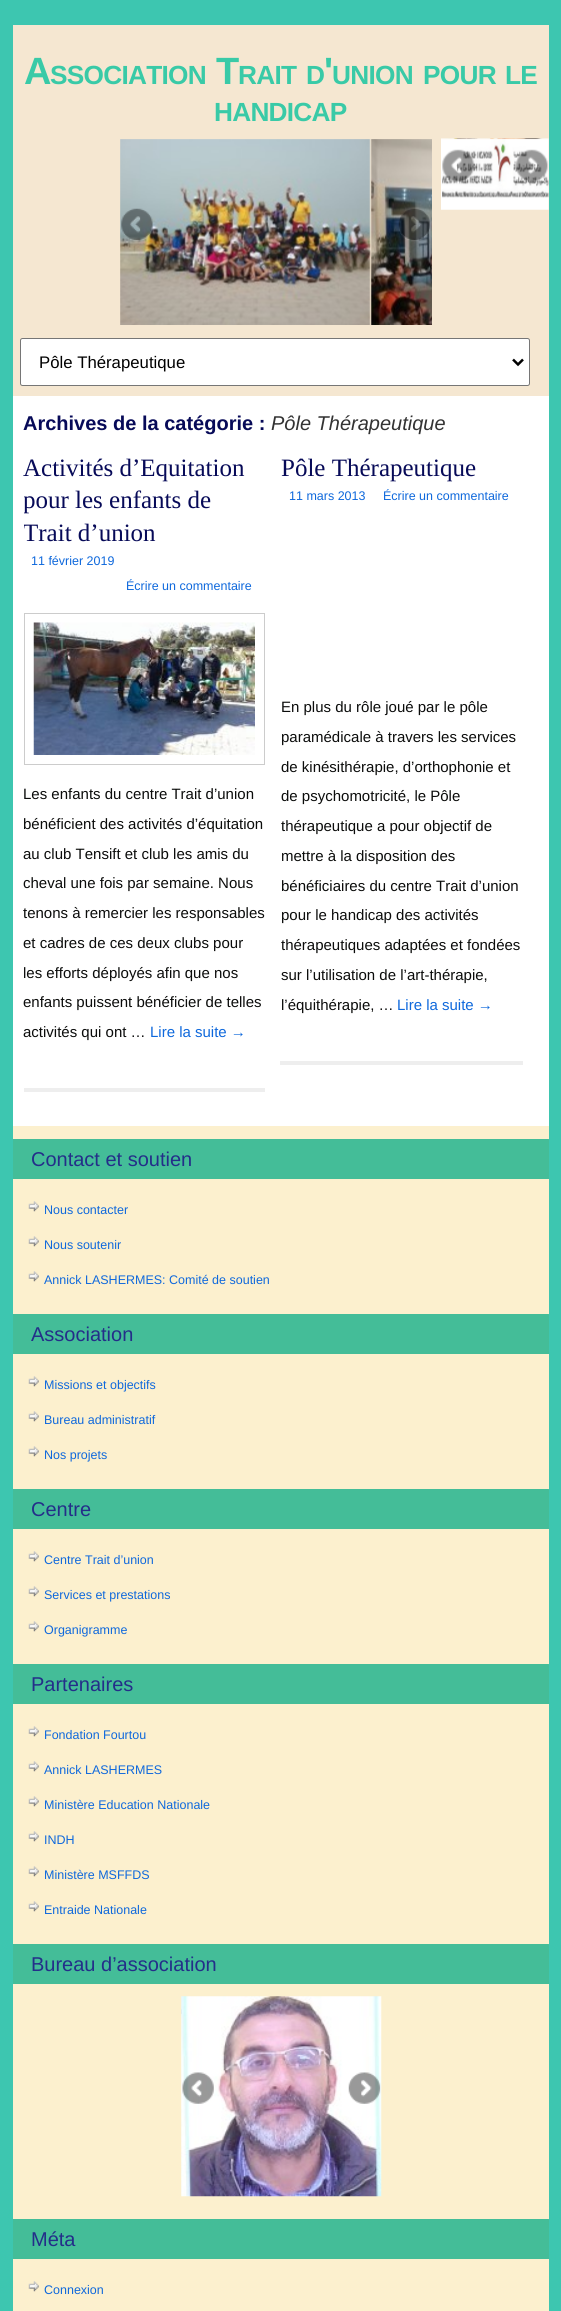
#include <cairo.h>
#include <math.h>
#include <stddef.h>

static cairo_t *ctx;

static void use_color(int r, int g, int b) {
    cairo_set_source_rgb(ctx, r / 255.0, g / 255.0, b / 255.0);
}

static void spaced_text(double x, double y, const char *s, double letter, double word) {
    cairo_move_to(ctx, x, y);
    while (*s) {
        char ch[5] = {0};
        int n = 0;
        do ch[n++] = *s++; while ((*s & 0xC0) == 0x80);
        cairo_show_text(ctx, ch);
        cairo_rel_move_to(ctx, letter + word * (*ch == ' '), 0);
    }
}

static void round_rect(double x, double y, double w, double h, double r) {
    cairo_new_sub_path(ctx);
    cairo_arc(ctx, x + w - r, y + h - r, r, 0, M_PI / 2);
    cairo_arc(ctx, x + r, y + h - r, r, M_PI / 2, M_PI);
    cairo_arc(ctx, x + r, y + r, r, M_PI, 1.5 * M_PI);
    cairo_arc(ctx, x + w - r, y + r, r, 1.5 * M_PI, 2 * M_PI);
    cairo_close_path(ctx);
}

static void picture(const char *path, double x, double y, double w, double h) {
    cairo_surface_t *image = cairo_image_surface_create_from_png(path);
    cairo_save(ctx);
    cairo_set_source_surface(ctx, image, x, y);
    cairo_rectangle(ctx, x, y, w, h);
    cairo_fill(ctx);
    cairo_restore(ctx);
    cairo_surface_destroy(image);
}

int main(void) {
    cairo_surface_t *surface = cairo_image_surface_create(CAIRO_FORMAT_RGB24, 561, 2311);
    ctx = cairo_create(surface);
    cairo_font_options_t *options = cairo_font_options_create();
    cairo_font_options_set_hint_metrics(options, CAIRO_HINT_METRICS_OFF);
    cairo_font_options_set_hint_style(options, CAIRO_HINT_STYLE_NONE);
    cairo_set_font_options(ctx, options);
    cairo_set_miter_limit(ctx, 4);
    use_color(61, 198, 176);
    cairo_paint(ctx);
    use_color(245, 231, 209);
    cairo_rectangle(ctx, 13, 25, 536, 371);
    cairo_fill(ctx);
    cairo_select_font_face(ctx, "Liberation Sans", CAIRO_FONT_SLANT_NORMAL, CAIRO_FONT_WEIGHT_BOLD);
    cairo_set_font_size(ctx, 38);
    use_color(57, 202, 167);
    spaced_text(24, 84, "A", -0.75, 0);
    spaced_text(216, 84, "T", -0.75, 0);
    spaced_text(324, 84, "'", -0.75, 0);
    cairo_set_font_size(ctx, 26.25);
    spaced_text(50, 84, "SSOCIATION", -0.75, 0);
    spaced_text(238, 84, "RAIT", -0.75, 0);
    spaced_text(306, 84, "D", -0.75, 0);
    spaced_text(332, 84, "UNION", -0.75, 0);
    spaced_text(423, 84, "POUR", -0.75, 0);
    spaced_text(505, 84, "LE", -0.75, 0);
    spaced_text(214, 121, "HANDICAP", -0.75, 0);
    picture("img1.png", 120, 139, 251, 186);
    picture("img2.png", 371, 139, 61, 186);
    picture("img3.png", 121, 208, 32, 33);
    picture("img4.png", 398, 208, 33, 34);
    picture("img5.png", 441, 138, 108, 2);
    picture("img6.png", 441, 139, 108, 71);
    picture("img7.png", 442, 149, 33, 34);
    picture("img8.png", 516, 149, 33, 34);
    use_color(255, 255, 255);
    round_rect(20.5, 338.5, 509, 47, 2);
    cairo_fill_preserve(ctx);
    use_color(118, 118, 118);
    cairo_set_line_width(ctx, 1);
    cairo_stroke(ctx);
    cairo_new_path(ctx);
    cairo_move_to(ctx, 513, 359.5);
    cairo_line_to(ctx, 518, 364.5);
    cairo_line_to(ctx, 523, 359.5);
    use_color(0, 0, 0);
    cairo_set_line_width(ctx, 2.5);
    cairo_stroke(ctx);
    cairo_select_font_face(ctx, "Liberation Sans", CAIRO_FONT_SLANT_NORMAL, CAIRO_FONT_WEIGHT_NORMAL);
    cairo_set_font_size(ctx, 16.75);
    cairo_move_to(ctx, 39, 368);
    cairo_show_text(ctx, "Pôle Thérapeutique");
    use_color(255, 255, 255);
    cairo_rectangle(ctx, 13, 396, 536, 730);
    cairo_fill(ctx);
    cairo_select_font_face(ctx, "Liberation Sans", CAIRO_FONT_SLANT_NORMAL, CAIRO_FONT_WEIGHT_BOLD);
    cairo_set_font_size(ctx, 20);
    use_color(7, 10, 88);
    cairo_move_to(ctx, 23, 430);
    cairo_show_text(ctx, "Archives de la catégorie :");
    cairo_select_font_face(ctx, "Liberation Sans", CAIRO_FONT_SLANT_ITALIC, CAIRO_FONT_WEIGHT_NORMAL);
    use_color(51, 51, 51);
    cairo_move_to(ctx, 271, 430);
    cairo_show_text(ctx, "Pôle Thérapeutique");
    use_color(238, 238, 238);
    cairo_rectangle(ctx, 24, 1088, 241, 4);
    cairo_fill(ctx);
    cairo_select_font_face(ctx, "Liberation Serif", CAIRO_FONT_SLANT_NORMAL, CAIRO_FONT_WEIGHT_NORMAL);
    cairo_set_font_size(ctx, 25);
    use_color(7, 10, 88);
    cairo_move_to(ctx, 23, 476);
    cairo_show_text(ctx, "Activités d’Equitation");
    cairo_save(ctx);
    cairo_rectangle(ctx, 24, 451, 241, 637);
    cairo_clip(ctx);
    cairo_move_to(ctx, 23, 508);
    cairo_show_text(ctx, "pour les enfants de");
    cairo_move_to(ctx, 23, 541);
    cairo_show_text(ctx, "Trait d’union");
    cairo_restore(ctx);
    cairo_select_font_face(ctx, "Liberation Sans", CAIRO_FONT_SLANT_NORMAL, CAIRO_FONT_WEIGHT_NORMAL);
    cairo_set_font_size(ctx, 12.5);
    use_color(14, 104, 220);
    cairo_move_to(ctx, 31, 565);
    cairo_show_text(ctx, "11 février 2019");
    cairo_move_to(ctx, 126, 590);
    cairo_show_text(ctx, "Écrire un commentaire");
    cairo_rectangle(ctx, 24.5, 613.5, 240, 151);
    use_color(204, 204, 204);
    cairo_set_line_width(ctx, 1);
    cairo_stroke(ctx);
    picture("img9.png", 33, 622, 222, 133);
    cairo_set_font_size(ctx, 15);
    use_color(11, 12, 11);
    cairo_move_to(ctx, 23, 799);
    cairo_show_text(ctx, "Les enfants du centre Trait d’union");
    cairo_move_to(ctx, 23, 829);
    cairo_show_text(ctx, "bénéficient des activités d’équitation");
    cairo_move_to(ctx, 23, 859);
    cairo_show_text(ctx, "au club Tensift et club les amis du");
    cairo_move_to(ctx, 23, 888);
    cairo_show_text(ctx, "cheval une fois par semaine. Nous");
    cairo_move_to(ctx, 23, 918);
    cairo_show_text(ctx, "tenons à remercier les responsables");
    cairo_move_to(ctx, 23, 948);
    cairo_show_text(ctx, "et cadres de ces deux clubs pour");
    cairo_move_to(ctx, 23, 978);
    cairo_show_text(ctx, "les efforts déployés afin que nos");
    cairo_move_to(ctx, 23, 1007);
    cairo_show_text(ctx, "enfants puissent bénéficier de telles");
    cairo_move_to(ctx, 23, 1037);
    cairo_show_text(ctx, "activités qui ont …");
    use_color(14, 104, 220);
    cairo_move_to(ctx, 150, 1037);
    cairo_show_text(ctx, "Lire la suite →");
    use_color(238, 238, 238);
    cairo_rectangle(ctx, 280, 1061, 243, 4);
    cairo_fill(ctx);
    cairo_select_font_face(ctx, "Liberation Serif", CAIRO_FONT_SLANT_NORMAL, CAIRO_FONT_WEIGHT_NORMAL);
    cairo_set_font_size(ctx, 25);
    use_color(7, 10, 88);
    cairo_move_to(ctx, 281, 476);
    cairo_show_text(ctx, "Pôle Thérapeutique");
    cairo_select_font_face(ctx, "Liberation Sans", CAIRO_FONT_SLANT_NORMAL, CAIRO_FONT_WEIGHT_NORMAL);
    cairo_set_font_size(ctx, 12.5);
    use_color(14, 104, 220);
    cairo_move_to(ctx, 289, 500);
    cairo_show_text(ctx, "11 mars 2013");
    cairo_move_to(ctx, 383, 500);
    cairo_show_text(ctx, "Écrire un commentaire");
    cairo_set_font_size(ctx, 15);
    use_color(11, 12, 11);
    cairo_move_to(ctx, 281, 712);
    cairo_show_text(ctx, "En plus du rôle joué par le pôle");
    cairo_move_to(ctx, 281, 742);
    cairo_show_text(ctx, "paramédicale à travers les services");
    cairo_move_to(ctx, 281, 772);
    cairo_show_text(ctx, "de kinésithérapie, d’orthophonie et");
    cairo_move_to(ctx, 281, 801);
    cairo_show_text(ctx, "de psychomotricité, le Pôle");
    cairo_move_to(ctx, 281, 831);
    cairo_show_text(ctx, "thérapeutique a pour objectif de");
    cairo_move_to(ctx, 281, 861);
    cairo_show_text(ctx, "mettre à la disposition des");
    cairo_move_to(ctx, 281, 891);
    cairo_show_text(ctx, "bénéficiaires du centre Trait d’union");
    cairo_move_to(ctx, 281, 920);
    cairo_show_text(ctx, "pour le handicap des activités");
    cairo_move_to(ctx, 281, 950);
    cairo_show_text(ctx, "thérapeutiques adaptées et fondées");
    cairo_move_to(ctx, 281, 980);
    cairo_show_text(ctx, "sur l’utilisation de l’art-thérapie,");
    cairo_move_to(ctx, 281, 1010);
    cairo_show_text(ctx, "l’équithérapie, …");
    use_color(14, 104, 220);
    cairo_move_to(ctx, 397, 1010);
    cairo_show_text(ctx, "Lire la suite →");
    use_color(252, 240, 206);
    cairo_rectangle(ctx, 13, 1126, 536, 1185);
    cairo_fill(ctx);
    cairo_save(ctx);
    cairo_rectangle(ctx, 13, 396, 536, 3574);
    cairo_clip(ctx);
    use_color(68, 189, 152);
    cairo_new_path(ctx);
    cairo_move_to(ctx, 13, 1139);
    cairo_line_to(ctx, 548, 1139);
    cairo_curve_to(ctx, 555, 1139, 561, 1145, 561, 1152);
    cairo_line_to(ctx, 561, 1179);
    cairo_line_to(ctx, 13, 1179);
    cairo_close_path(ctx);
    cairo_fill(ctx);
    cairo_restore(ctx);
    cairo_set_font_size(ctx, 20);
    use_color(36, 46, 137);
    cairo_move_to(ctx, 31, 1166);
    cairo_show_text(ctx, "Contact et soutien");
    picture("img10.png", 28, 1201, 11, 11);
    cairo_set_font_size(ctx, 12.5);
    use_color(14, 104, 220);
    cairo_move_to(ctx, 44, 1214);
    cairo_show_text(ctx, "Nous contacter");
    picture("img10.png", 28, 1236, 11, 11);
    cairo_move_to(ctx, 44, 1249);
    cairo_show_text(ctx, "Nous soutenir");
    picture("img10.png", 28, 1271, 11, 11);
    cairo_move_to(ctx, 44, 1284);
    cairo_show_text(ctx, "Annick LASHERMES: Comité de soutien");
    cairo_save(ctx);
    cairo_rectangle(ctx, 13, 396, 536, 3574);
    cairo_clip(ctx);
    use_color(68, 189, 152);
    cairo_new_path(ctx);
    cairo_move_to(ctx, 13, 1314);
    cairo_line_to(ctx, 548, 1314);
    cairo_curve_to(ctx, 555, 1314, 561, 1320, 561, 1327);
    cairo_line_to(ctx, 561, 1354);
    cairo_line_to(ctx, 13, 1354);
    cairo_close_path(ctx);
    cairo_fill(ctx);
    cairo_restore(ctx);
    cairo_set_font_size(ctx, 20);
    use_color(36, 46, 137);
    cairo_move_to(ctx, 31, 1341);
    cairo_show_text(ctx, "Association");
    picture("img10.png", 28, 1376, 11, 11);
    cairo_set_font_size(ctx, 12.5);
    use_color(14, 104, 220);
    cairo_move_to(ctx, 44, 1389);
    cairo_show_text(ctx, "Missions et objectifs");
    picture("img10.png", 28, 1411, 11, 11);
    cairo_move_to(ctx, 44, 1424);
    cairo_show_text(ctx, "Bureau administratif");
    picture("img10.png", 28, 1446, 11, 11);
    cairo_move_to(ctx, 44, 1459);
    cairo_show_text(ctx, "Nos projets");
    cairo_save(ctx);
    cairo_rectangle(ctx, 13, 396, 536, 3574);
    cairo_clip(ctx);
    use_color(68, 189, 152);
    cairo_new_path(ctx);
    cairo_move_to(ctx, 13, 1489);
    cairo_line_to(ctx, 548, 1489);
    cairo_curve_to(ctx, 555, 1489, 561, 1495, 561, 1502);
    cairo_line_to(ctx, 561, 1529);
    cairo_line_to(ctx, 13, 1529);
    cairo_close_path(ctx);
    cairo_fill(ctx);
    cairo_restore(ctx);
    cairo_set_font_size(ctx, 20);
    use_color(36, 46, 137);
    cairo_move_to(ctx, 31, 1516);
    cairo_show_text(ctx, "Centre");
    picture("img10.png", 28, 1551, 11, 11);
    cairo_set_font_size(ctx, 12.5);
    use_color(14, 104, 220);
    cairo_move_to(ctx, 44, 1564);
    cairo_show_text(ctx, "Centre Trait d’union");
    picture("img10.png", 28, 1586, 11, 11);
    cairo_move_to(ctx, 44, 1599);
    cairo_show_text(ctx, "Services et prestations");
    picture("img10.png", 28, 1621, 11, 11);
    cairo_move_to(ctx, 44, 1634);
    cairo_show_text(ctx, "Organigramme");
    cairo_save(ctx);
    cairo_rectangle(ctx, 13, 396, 536, 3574);
    cairo_clip(ctx);
    use_color(68, 189, 152);
    cairo_new_path(ctx);
    cairo_move_to(ctx, 13, 1664);
    cairo_line_to(ctx, 548, 1664);
    cairo_curve_to(ctx, 555, 1664, 561, 1670, 561, 1677);
    cairo_line_to(ctx, 561, 1704);
    cairo_line_to(ctx, 13, 1704);
    cairo_close_path(ctx);
    cairo_fill(ctx);
    cairo_restore(ctx);
    cairo_set_font_size(ctx, 20);
    use_color(36, 46, 137);
    cairo_move_to(ctx, 31, 1691);
    cairo_show_text(ctx, "Partenaires");
    picture("img10.png", 28, 1726, 11, 11);
    cairo_set_font_size(ctx, 12.5);
    use_color(14, 104, 220);
    cairo_move_to(ctx, 44, 1739);
    cairo_show_text(ctx, "Fondation Fourtou");
    picture("img10.png", 28, 1761, 11, 11);
    cairo_move_to(ctx, 44, 1774);
    cairo_show_text(ctx, "Annick LASHERMES");
    picture("img10.png", 28, 1796, 11, 11);
    cairo_move_to(ctx, 44, 1809);
    cairo_show_text(ctx, "Ministère Education Nationale");
    picture("img10.png", 28, 1831, 11, 11);
    cairo_move_to(ctx, 44, 1844);
    cairo_show_text(ctx, "INDH");
    picture("img10.png", 28, 1866, 11, 11);
    cairo_move_to(ctx, 44, 1879);
    cairo_show_text(ctx, "Ministère MSFFDS");
    picture("img10.png", 28, 1901, 11, 11);
    cairo_move_to(ctx, 44, 1914);
    cairo_show_text(ctx, "Entraide Nationale");
    cairo_save(ctx);
    cairo_rectangle(ctx, 13, 396, 536, 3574);
    cairo_clip(ctx);
    use_color(68, 189, 152);
    cairo_new_path(ctx);
    cairo_move_to(ctx, 13, 1944);
    cairo_line_to(ctx, 548, 1944);
    cairo_curve_to(ctx, 555, 1944, 561, 1950, 561, 1957);
    cairo_line_to(ctx, 561, 1984);
    cairo_line_to(ctx, 13, 1984);
    cairo_close_path(ctx);
    cairo_fill(ctx);
    cairo_restore(ctx);
    cairo_set_font_size(ctx, 20);
    use_color(36, 46, 137);
    cairo_move_to(ctx, 31, 1971);
    cairo_show_text(ctx, "Bureau d’association");
    picture("img11.png", 181, 2008, 1, 6);
    picture("img12.png", 181, 1996, 201, 201);
    picture("img13.png", 182, 2072, 32, 32);
    picture("img14.png", 348, 2072, 33, 32);
    cairo_save(ctx);
    cairo_rectangle(ctx, 13, 396, 536, 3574);
    cairo_clip(ctx);
    use_color(68, 189, 152);
    cairo_new_path(ctx);
    cairo_move_to(ctx, 13, 2219);
    cairo_line_to(ctx, 548, 2219);
    cairo_curve_to(ctx, 555, 2219, 561, 2225, 561, 2232);
    cairo_line_to(ctx, 561, 2259);
    cairo_line_to(ctx, 13, 2259);
    cairo_close_path(ctx);
    cairo_fill(ctx);
    cairo_restore(ctx);
    cairo_move_to(ctx, 31, 2246);
    cairo_show_text(ctx, "Méta");
    picture("img10.png", 28, 2281, 11, 11);
    cairo_set_font_size(ctx, 12.5);
    use_color(14, 104, 220);
    cairo_move_to(ctx, 44, 2294);
    cairo_show_text(ctx, "Connexion");
    cairo_surface_write_to_png(surface, "result.png");
    cairo_font_options_destroy(options);
    cairo_destroy(ctx);
    cairo_surface_destroy(surface);
    return 0;
}
